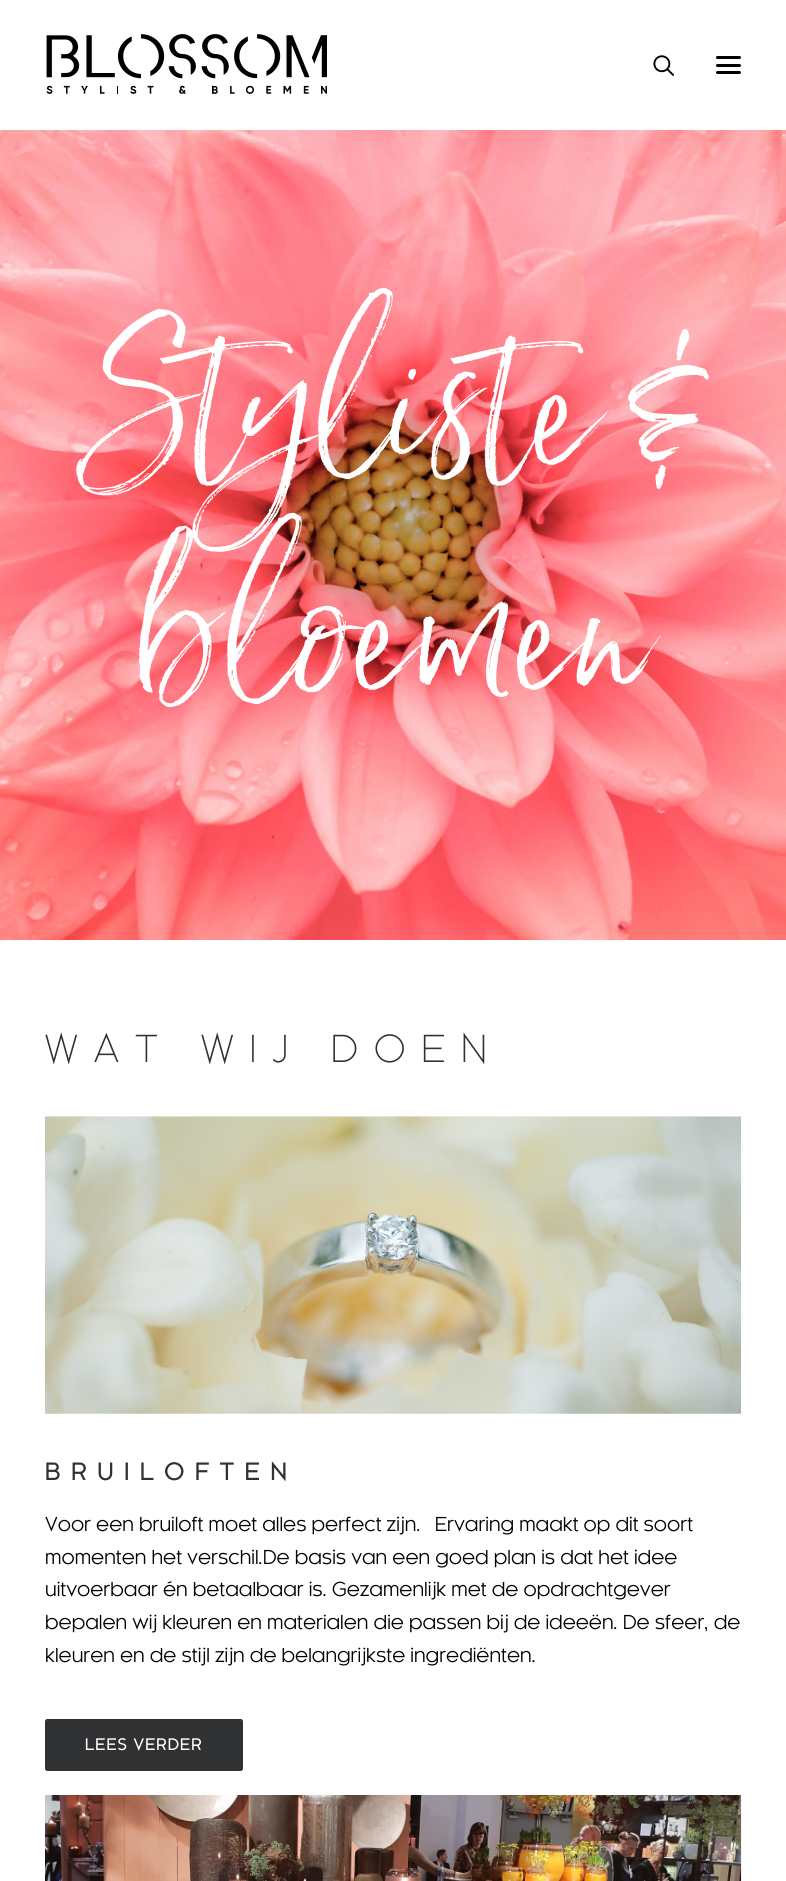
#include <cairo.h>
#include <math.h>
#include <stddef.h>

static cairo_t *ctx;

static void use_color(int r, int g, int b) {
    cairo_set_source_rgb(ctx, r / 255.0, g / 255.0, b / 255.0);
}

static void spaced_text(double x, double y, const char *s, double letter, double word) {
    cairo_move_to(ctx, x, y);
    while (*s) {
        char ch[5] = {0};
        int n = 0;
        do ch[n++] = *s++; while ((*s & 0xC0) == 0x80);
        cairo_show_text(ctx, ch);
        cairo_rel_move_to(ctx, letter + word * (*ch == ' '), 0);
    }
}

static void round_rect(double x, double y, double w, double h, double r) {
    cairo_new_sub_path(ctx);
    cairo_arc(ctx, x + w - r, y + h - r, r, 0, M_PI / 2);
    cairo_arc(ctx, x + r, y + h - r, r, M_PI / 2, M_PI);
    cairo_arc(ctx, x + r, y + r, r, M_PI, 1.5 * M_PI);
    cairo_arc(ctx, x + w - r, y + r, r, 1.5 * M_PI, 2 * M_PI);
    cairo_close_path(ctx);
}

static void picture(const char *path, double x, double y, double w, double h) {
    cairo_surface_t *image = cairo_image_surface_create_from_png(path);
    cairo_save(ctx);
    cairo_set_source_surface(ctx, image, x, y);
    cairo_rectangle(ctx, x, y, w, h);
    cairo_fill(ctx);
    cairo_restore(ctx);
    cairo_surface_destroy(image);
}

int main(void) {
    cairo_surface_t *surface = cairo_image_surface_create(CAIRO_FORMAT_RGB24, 786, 1881);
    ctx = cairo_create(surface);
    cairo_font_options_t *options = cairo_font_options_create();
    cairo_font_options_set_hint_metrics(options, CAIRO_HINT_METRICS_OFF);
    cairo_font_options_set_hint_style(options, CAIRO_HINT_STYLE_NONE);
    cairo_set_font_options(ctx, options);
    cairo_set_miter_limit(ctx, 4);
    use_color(255, 255, 255);
    cairo_paint(ctx);
    picture("img1.png", 46, 34, 281, 60);
    picture("img2.png", 653, 55, 21, 21);
    use_color(0, 0, 0);
    round_rect(716, 64, 25, 3, 1.5);
    cairo_fill(ctx);
    round_rect(716, 56, 25, 3, 1.5);
    cairo_fill(ctx);
    round_rect(716, 71, 25, 3, 1.5);
    cairo_fill(ctx);
    picture("img3.png", 0, 130, 786, 810);
    cairo_select_font_face(ctx, "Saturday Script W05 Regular", CAIRO_FONT_SLANT_NORMAL, CAIRO_FONT_WEIGHT_NORMAL);
    cairo_set_font_size(ctx, 187.5);
    use_color(255, 255, 255);
    cairo_move_to(ctx, 92, 460);
    cairo_show_text(ctx, "Styliste &");
    cairo_move_to(ctx, 135, 685);
    cairo_show_text(ctx, "bloemen");
    cairo_select_font_face(ctx, "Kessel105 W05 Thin", CAIRO_FONT_SLANT_NORMAL, CAIRO_FONT_WEIGHT_BOLD);
    cairo_set_font_size(ctx, 35);
    use_color(48, 49, 51);
    spaced_text(45, 1062, "WAT WIJ DOEN", 17.5, 0);
    picture("img4.png", 45, 1116, 697, 298);
    cairo_select_font_face(ctx, "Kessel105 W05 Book", CAIRO_FONT_SLANT_NORMAL, CAIRO_FONT_WEIGHT_BOLD);
    cairo_set_font_size(ctx, 22.5);
    spaced_text(45, 1480, "BRUILOFTEN", 11.25, 0);
    cairo_select_font_face(ctx, "Kessel105 W05 Book", CAIRO_FONT_SLANT_NORMAL, CAIRO_FONT_WEIGHT_NORMAL);
    cairo_set_font_size(ctx, 18.75);
    use_color(0, 0, 0);
    cairo_move_to(ctx, 45, 1531);
    cairo_show_text(ctx, "Voor een bruiloft moet alles perfect zijn.");
    cairo_move_to(ctx, 435, 1531);
    cairo_show_text(ctx, "Ervaring maakt op dit soort");
    cairo_move_to(ctx, 45, 1564);
    cairo_show_text(ctx, "momenten het verschil.De basis van een goed plan is dat het idee");
    cairo_move_to(ctx, 45, 1596);
    cairo_show_text(ctx, "uitvoerbaar én betaalbaar is. Gezamenlijk met de opdrachtgever");
    cairo_move_to(ctx, 45, 1629);
    cairo_show_text(ctx, "bepalen wij kleuren en materialen die passen bij de ideeën. De sfeer, de");
    cairo_move_to(ctx, 45, 1662);
    cairo_show_text(ctx, "kleuren en de stijl zijn de belangrijkste ingrediënten.");
    use_color(48, 49, 51);
    round_rect(45.5, 1719.5, 197, 51, 2);
    cairo_fill_preserve(ctx);
    cairo_set_line_width(ctx, 1);
    cairo_stroke(ctx);
    cairo_select_font_face(ctx, "Kessel105 W05 Book", CAIRO_FONT_SLANT_NORMAL, CAIRO_FONT_WEIGHT_BOLD);
    cairo_set_font_size(ctx, 15);
    use_color(255, 255, 255);
    spaced_text(85, 1750, "LEES VERDER", 1.5, 0);
    picture("img5.png", 45, 1795, 697, 86);
    cairo_surface_write_to_png(surface, "result.png");
    cairo_font_options_destroy(options);
    cairo_destroy(ctx);
    cairo_surface_destroy(surface);
    return 0;
}
